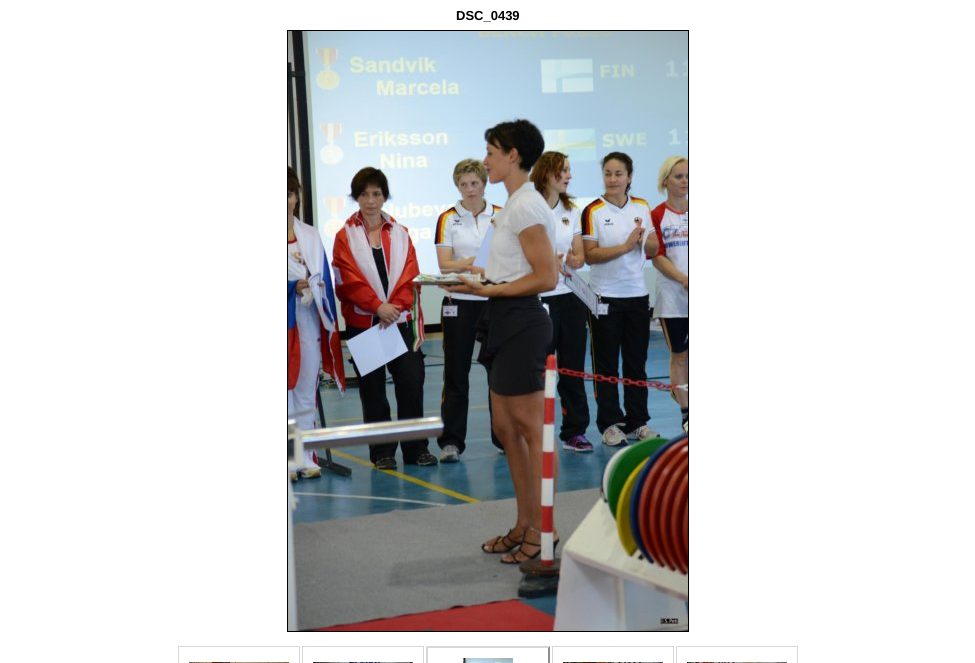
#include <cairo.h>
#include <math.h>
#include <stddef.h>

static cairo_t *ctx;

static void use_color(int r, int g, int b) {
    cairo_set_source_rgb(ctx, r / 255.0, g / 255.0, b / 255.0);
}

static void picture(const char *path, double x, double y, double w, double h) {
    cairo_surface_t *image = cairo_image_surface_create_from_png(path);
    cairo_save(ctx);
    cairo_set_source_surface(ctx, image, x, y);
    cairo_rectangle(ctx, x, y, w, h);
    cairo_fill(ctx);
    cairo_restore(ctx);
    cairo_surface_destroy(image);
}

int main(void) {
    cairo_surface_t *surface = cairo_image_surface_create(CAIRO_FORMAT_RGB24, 975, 663);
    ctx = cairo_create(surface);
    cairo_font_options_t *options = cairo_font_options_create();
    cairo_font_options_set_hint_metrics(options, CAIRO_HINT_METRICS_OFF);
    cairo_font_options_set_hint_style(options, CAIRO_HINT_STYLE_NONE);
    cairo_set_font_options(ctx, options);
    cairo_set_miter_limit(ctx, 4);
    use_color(255, 255, 255);
    cairo_paint(ctx);
    cairo_select_font_face(ctx, "Liberation Sans", CAIRO_FONT_SLANT_NORMAL, CAIRO_FONT_WEIGHT_BOLD);
    cairo_set_font_size(ctx, 13);
    use_color(0, 0, 0);
    cairo_move_to(ctx, 456, 20);
    cairo_show_text(ctx, "DSC_0439");
    cairo_rectangle(ctx, 287.5, 30.5, 401, 601);
    cairo_set_line_width(ctx, 1);
    cairo_stroke(ctx);
    picture("img1.png", 288, 31, 400, 600);
    cairo_rectangle(ctx, 178.5, 646.5, 121, 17);
    use_color(215, 215, 215);
    cairo_stroke(ctx);
    picture("img2.png", 189, 662, 100, 1);
    cairo_rectangle(ctx, 302.5, 646.5, 121, 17);
    cairo_stroke(ctx);
    picture("img3.png", 313, 662, 100, 1);
    cairo_new_path(ctx);
    cairo_move_to(ctx, 426, 646);
    cairo_line_to(ctx, 550, 646);
    cairo_line_to(ctx, 548, 648);
    cairo_line_to(ctx, 428, 648);
    cairo_close_path(ctx);
    cairo_fill(ctx);
    use_color(143, 143, 143);
    cairo_new_path(ctx);
    cairo_move_to(ctx, 550, 646);
    cairo_line_to(ctx, 550, 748);
    cairo_line_to(ctx, 548, 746);
    cairo_line_to(ctx, 548, 648);
    cairo_close_path(ctx);
    cairo_fill(ctx);
    use_color(215, 215, 215);
    cairo_new_path(ctx);
    cairo_move_to(ctx, 426, 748);
    cairo_line_to(ctx, 426, 646);
    cairo_line_to(ctx, 428, 648);
    cairo_line_to(ctx, 428, 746);
    cairo_close_path(ctx);
    cairo_fill(ctx);
    picture("img4.png", 463, 658, 50, 5);
    cairo_rectangle(ctx, 552.5, 646.5, 121, 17);
    cairo_stroke(ctx);
    picture("img5.png", 563, 662, 100, 1);
    cairo_rectangle(ctx, 676.5, 646.5, 121, 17);
    cairo_stroke(ctx);
    picture("img6.png", 687, 662, 100, 1);
    cairo_surface_write_to_png(surface, "result.png");
    cairo_font_options_destroy(options);
    cairo_destroy(ctx);
    cairo_surface_destroy(surface);
    return 0;
}
